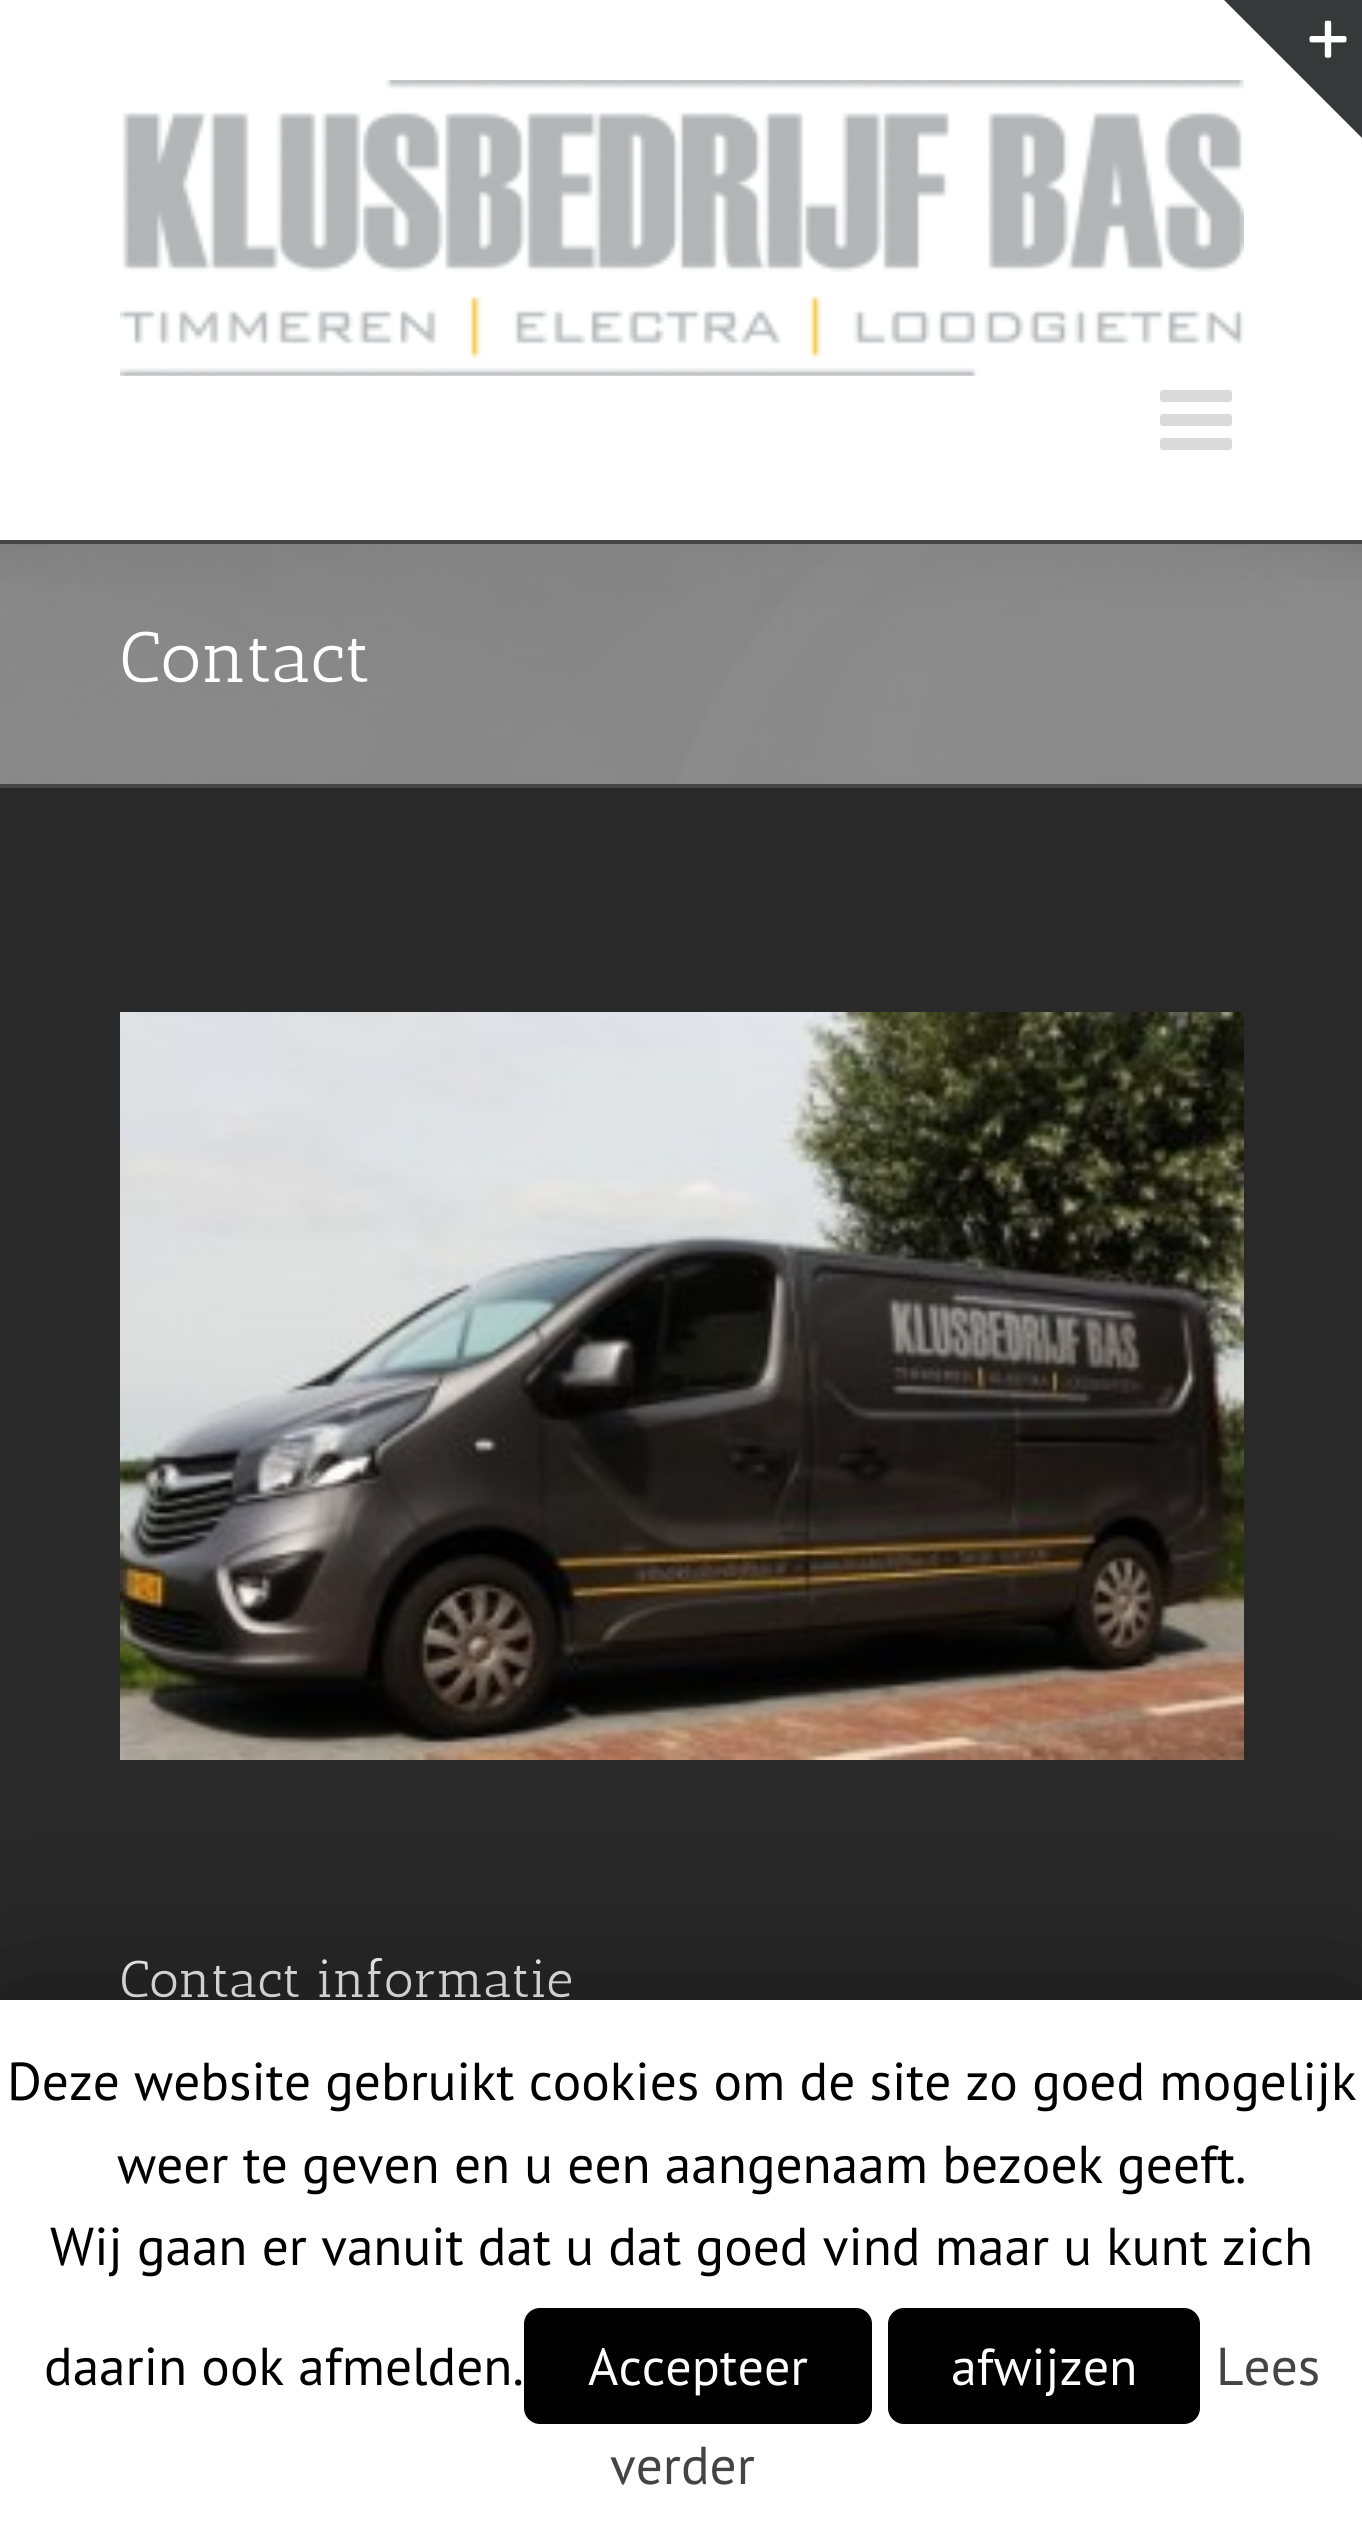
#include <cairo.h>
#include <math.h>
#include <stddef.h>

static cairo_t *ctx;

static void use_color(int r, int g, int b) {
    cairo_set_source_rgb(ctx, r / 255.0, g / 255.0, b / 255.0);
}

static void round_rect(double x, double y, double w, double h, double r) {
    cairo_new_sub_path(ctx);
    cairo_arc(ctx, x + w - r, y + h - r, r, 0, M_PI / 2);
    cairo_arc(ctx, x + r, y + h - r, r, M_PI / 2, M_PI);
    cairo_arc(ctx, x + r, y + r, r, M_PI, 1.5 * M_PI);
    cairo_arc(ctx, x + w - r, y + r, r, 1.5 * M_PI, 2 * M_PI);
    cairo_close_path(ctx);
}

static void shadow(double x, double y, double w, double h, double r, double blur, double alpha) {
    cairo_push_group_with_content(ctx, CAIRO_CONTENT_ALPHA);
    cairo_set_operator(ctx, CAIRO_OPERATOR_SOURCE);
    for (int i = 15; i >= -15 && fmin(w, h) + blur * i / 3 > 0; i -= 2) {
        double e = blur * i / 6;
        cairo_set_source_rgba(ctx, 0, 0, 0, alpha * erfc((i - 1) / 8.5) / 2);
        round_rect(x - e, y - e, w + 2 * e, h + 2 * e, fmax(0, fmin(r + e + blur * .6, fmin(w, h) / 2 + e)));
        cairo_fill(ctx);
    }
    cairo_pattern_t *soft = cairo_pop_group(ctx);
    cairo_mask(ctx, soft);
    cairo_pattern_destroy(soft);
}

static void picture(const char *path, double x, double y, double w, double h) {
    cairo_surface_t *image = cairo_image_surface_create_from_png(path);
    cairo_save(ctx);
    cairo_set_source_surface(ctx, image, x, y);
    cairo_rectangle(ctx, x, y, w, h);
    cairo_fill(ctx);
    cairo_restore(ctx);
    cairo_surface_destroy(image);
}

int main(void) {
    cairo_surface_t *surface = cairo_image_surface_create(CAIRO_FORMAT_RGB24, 1362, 2546);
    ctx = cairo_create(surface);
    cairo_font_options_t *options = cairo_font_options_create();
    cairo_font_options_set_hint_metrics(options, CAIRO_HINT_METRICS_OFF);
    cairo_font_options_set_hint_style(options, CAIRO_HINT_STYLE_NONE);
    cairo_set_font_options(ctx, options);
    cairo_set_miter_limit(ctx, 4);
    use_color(41, 41, 42);
    cairo_paint(ctx);
    use_color(255, 255, 255);
    cairo_rectangle(ctx, 0, 0, 1362, 540);
    cairo_fill(ctx);
    picture("img1.png", 120, 80, 1124, 296);
    picture("img2.png", 1160, 390, 72, 60);
    use_color(54, 56, 57);
    cairo_new_path(ctx);
    cairo_move_to(ctx, 1224, 0);
    cairo_line_to(ctx, 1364, 0);
    cairo_line_to(ctx, 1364, 140);
    cairo_close_path(ctx);
    cairo_fill(ctx);
    picture("img3.png", 1309, 20, 38, 38);
    use_color(53, 53, 53);
    cairo_rectangle(ctx, 0, 544, 1362, 240);
    cairo_fill(ctx);
    picture("img4.png", 0, 544, 1362, 240);
    use_color(70, 70, 70);
    cairo_rectangle(ctx, 0, 540, 1362, 4);
    cairo_fill(ctx);
    cairo_rectangle(ctx, 0, 784, 1362, 4);
    cairo_fill(ctx);
    cairo_select_font_face(ctx, "Antic Slab", CAIRO_FONT_SLANT_NORMAL, CAIRO_FONT_WEIGHT_NORMAL);
    cairo_set_font_size(ctx, 72);
    use_color(255, 255, 255);
    cairo_move_to(ctx, 120, 682);
    cairo_show_text(ctx, "Contact");
    picture("img5.png", 120, 1012, 1124, 748);
    cairo_set_font_size(ctx, 52);
    cairo_move_to(ctx, 120, 1997);
    cairo_show_text(ctx, "Contact informatie");
    use_color(0, 0, 0);
    shadow(0, 2020, 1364, 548, 0, 100, 0.5);
    use_color(255, 255, 255);
    cairo_rectangle(ctx, 0, 2000, 1362, 546);
    cairo_fill(ctx);
    cairo_select_font_face(ctx, "PT Sans", CAIRO_FONT_SLANT_NORMAL, CAIRO_FONT_WEIGHT_NORMAL);
    cairo_set_font_size(ctx, 53.3);
    use_color(0, 0, 0);
    cairo_move_to(ctx, 7, 2100);
    cairo_show_text(ctx, "Deze website gebruikt cookies om de site zo goed mogelijk");
    cairo_move_to(ctx, 117, 2183);
    cairo_show_text(ctx, "weer te geven en u een aangenaam bezoek geeft.");
    cairo_move_to(ctx, 50, 2265);
    cairo_show_text(ctx, "Wij gaan er vanuit dat u dat goed vind maar u kunt zich");
    cairo_move_to(ctx, 44, 2385);
    cairo_show_text(ctx, "daarin ook afmelden.");
    round_rect(524, 2308, 348, 116, 16);
    cairo_fill(ctx);
    cairo_set_font_size(ctx, 52);
    use_color(255, 255, 255);
    cairo_move_to(ctx, 588, 2385);
    cairo_show_text(ctx, "Accepteer");
    use_color(0, 0, 0);
    round_rect(888, 2308, 312, 116, 16);
    cairo_fill(ctx);
    use_color(255, 255, 255);
    cairo_move_to(ctx, 951, 2385);
    cairo_show_text(ctx, "afwijzen");
    cairo_set_font_size(ctx, 53.3);
    use_color(68, 68, 68);
    cairo_move_to(ctx, 1216, 2385);
    cairo_show_text(ctx, "Lees");
    cairo_move_to(ctx, 610, 2484);
    cairo_show_text(ctx, "verder");
    cairo_surface_write_to_png(surface, "result.png");
    cairo_font_options_destroy(options);
    cairo_destroy(ctx);
    cairo_surface_destroy(surface);
    return 0;
}
